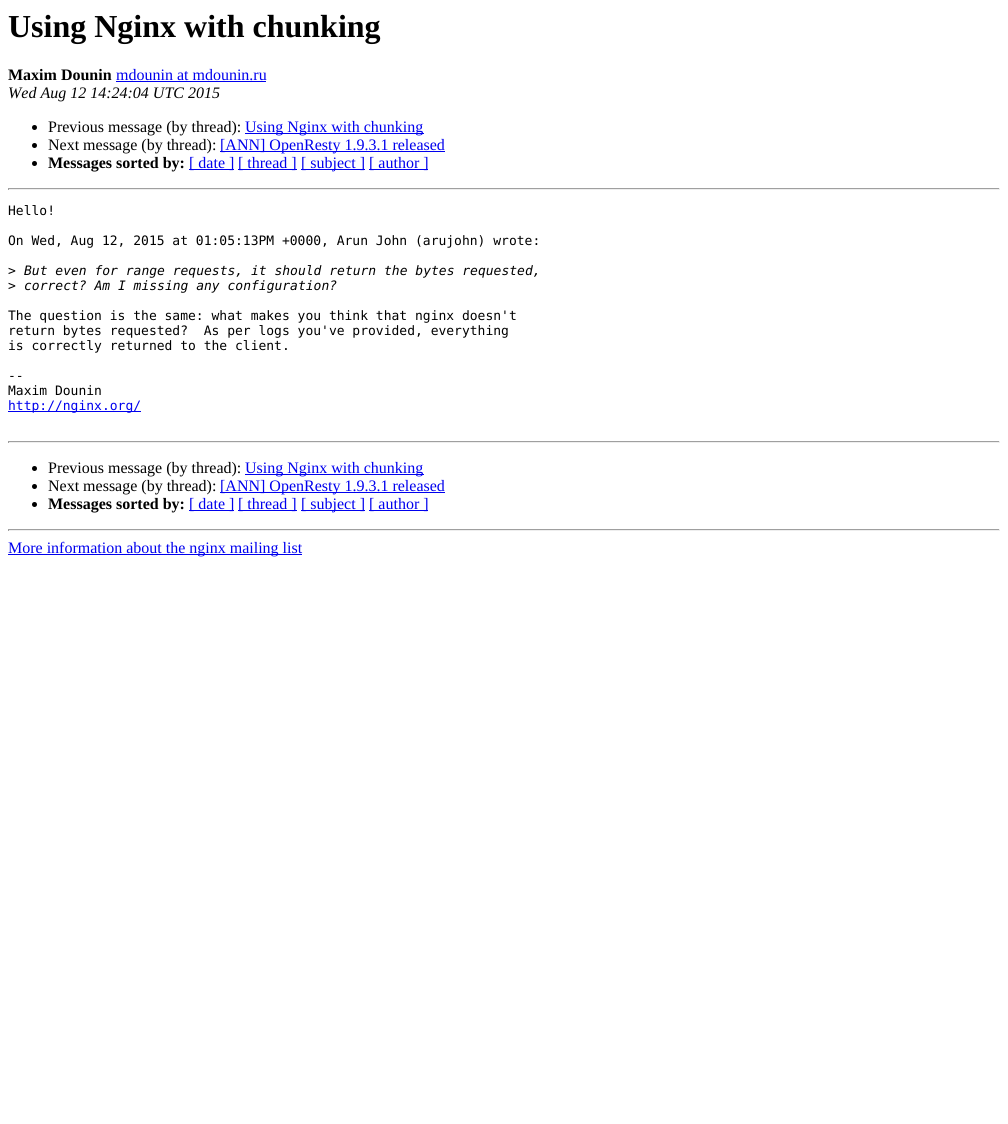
#include <cairo.h>
#include <math.h>
#include <stddef.h>

static cairo_t *ctx;

static void use_color(int r, int g, int b) {
    cairo_set_source_rgb(ctx, r / 255.0, g / 255.0, b / 255.0);
}

int main(void) {
    cairo_surface_t *surface = cairo_image_surface_create(CAIRO_FORMAT_RGB24, 1008, 1124);
    ctx = cairo_create(surface);
    cairo_font_options_t *options = cairo_font_options_create();
    cairo_font_options_set_hint_metrics(options, CAIRO_HINT_METRICS_OFF);
    cairo_font_options_set_hint_style(options, CAIRO_HINT_STYLE_NONE);
    cairo_set_font_options(ctx, options);
    cairo_set_miter_limit(ctx, 4);
    use_color(255, 255, 255);
    cairo_paint(ctx);
    cairo_select_font_face(ctx, "Liberation Serif", CAIRO_FONT_SLANT_NORMAL, CAIRO_FONT_WEIGHT_BOLD);
    cairo_set_font_size(ctx, 32);
    use_color(0, 0, 0);
    cairo_move_to(ctx, 8, 37);
    cairo_show_text(ctx, "Using Nginx with chunking");
    cairo_set_font_size(ctx, 16);
    cairo_move_to(ctx, 8, 80);
    cairo_show_text(ctx, "Maxim Dounin");
    cairo_select_font_face(ctx, "Liberation Serif", CAIRO_FONT_SLANT_NORMAL, CAIRO_FONT_WEIGHT_NORMAL);
    use_color(0, 0, 238);
    cairo_move_to(ctx, 116, 80);
    cairo_show_text(ctx, "mdounin at mdounin.ru");
    cairo_rectangle(ctx, 116, 81, 150, 1);
    cairo_fill(ctx);
    cairo_select_font_face(ctx, "Liberation Serif", CAIRO_FONT_SLANT_ITALIC, CAIRO_FONT_WEIGHT_NORMAL);
    use_color(0, 0, 0);
    cairo_move_to(ctx, 8, 98);
    cairo_show_text(ctx, "Wed Aug 12 14:24:04 UTC 2015");
    cairo_new_path(ctx);
    cairo_arc(ctx, 34.5, 127.5, 2.5, 0, 2 * M_PI);
    cairo_fill(ctx);
    cairo_select_font_face(ctx, "Liberation Serif", CAIRO_FONT_SLANT_NORMAL, CAIRO_FONT_WEIGHT_NORMAL);
    cairo_move_to(ctx, 48, 132);
    cairo_show_text(ctx, "Previous message (by thread):");
    use_color(0, 0, 238);
    cairo_rectangle(ctx, 245, 133, 179, 1);
    cairo_fill(ctx);
    cairo_move_to(ctx, 245, 132);
    cairo_show_text(ctx, "Using Nginx with chunking");
    use_color(0, 0, 0);
    cairo_new_path(ctx);
    cairo_arc(ctx, 34.5, 145.5, 2.5, 0, 2 * M_PI);
    cairo_fill(ctx);
    cairo_move_to(ctx, 48, 150);
    cairo_show_text(ctx, "Next message (by thread):");
    use_color(0, 0, 238);
    cairo_rectangle(ctx, 220, 151, 225, 1);
    cairo_fill(ctx);
    cairo_move_to(ctx, 220, 150);
    cairo_show_text(ctx, "[ANN] OpenResty 1.9.3.1 released");
    use_color(0, 0, 0);
    cairo_new_path(ctx);
    cairo_arc(ctx, 34.5, 163.5, 2.5, 0, 2 * M_PI);
    cairo_fill(ctx);
    cairo_select_font_face(ctx, "Liberation Serif", CAIRO_FONT_SLANT_NORMAL, CAIRO_FONT_WEIGHT_BOLD);
    cairo_move_to(ctx, 48, 168);
    cairo_show_text(ctx, "Messages sorted by:");
    use_color(0, 0, 238);
    cairo_rectangle(ctx, 189, 169, 45, 1);
    cairo_fill(ctx);
    cairo_select_font_face(ctx, "Liberation Serif", CAIRO_FONT_SLANT_NORMAL, CAIRO_FONT_WEIGHT_NORMAL);
    cairo_move_to(ctx, 189, 168);
    cairo_show_text(ctx, "[ date ]");
    cairo_rectangle(ctx, 238, 169, 59, 1);
    cairo_fill(ctx);
    cairo_move_to(ctx, 238, 168);
    cairo_show_text(ctx, "[ thread ]");
    cairo_rectangle(ctx, 301, 169, 64, 1);
    cairo_fill(ctx);
    cairo_move_to(ctx, 301, 168);
    cairo_show_text(ctx, "[ subject ]");
    cairo_rectangle(ctx, 369, 169, 59, 1);
    cairo_fill(ctx);
    cairo_move_to(ctx, 369, 168);
    cairo_show_text(ctx, "[ author ]");
    use_color(159, 159, 159);
    cairo_rectangle(ctx, 8, 188, 992, 1);
    cairo_fill(ctx);
    use_color(238, 238, 238);
    cairo_rectangle(ctx, 999, 188, 1, 2);
    cairo_fill(ctx);
    cairo_rectangle(ctx, 8, 189, 992, 1);
    cairo_fill(ctx);
    use_color(159, 159, 159);
    cairo_rectangle(ctx, 8, 188, 1, 2);
    cairo_fill(ctx);
    cairo_select_font_face(ctx, "DejaVu Sans Mono", CAIRO_FONT_SLANT_NORMAL, CAIRO_FONT_WEIGHT_NORMAL);
    cairo_set_font_size(ctx, 13);
    use_color(0, 0, 0);
    cairo_move_to(ctx, 8, 215);
    cairo_show_text(ctx, "Hello!");
    cairo_move_to(ctx, 8, 245);
    cairo_show_text(ctx, "On Wed, Aug 12, 2015 at 01:05:13PM +0000, Arun John (arujohn) wrote:");
    cairo_move_to(ctx, 8, 275);
    cairo_show_text(ctx, ">");
    cairo_select_font_face(ctx, "DejaVu Sans Mono", CAIRO_FONT_SLANT_ITALIC, CAIRO_FONT_WEIGHT_NORMAL);
    cairo_move_to(ctx, 24, 275);
    cairo_show_text(ctx, "But even for range requests, it should return the bytes requested,");
    cairo_select_font_face(ctx, "DejaVu Sans Mono", CAIRO_FONT_SLANT_NORMAL, CAIRO_FONT_WEIGHT_NORMAL);
    cairo_move_to(ctx, 8, 290);
    cairo_show_text(ctx, ">");
    cairo_select_font_face(ctx, "DejaVu Sans Mono", CAIRO_FONT_SLANT_ITALIC, CAIRO_FONT_WEIGHT_NORMAL);
    cairo_move_to(ctx, 24, 290);
    cairo_show_text(ctx, "correct? Am I missing any configuration?");
    cairo_select_font_face(ctx, "DejaVu Sans Mono", CAIRO_FONT_SLANT_NORMAL, CAIRO_FONT_WEIGHT_NORMAL);
    cairo_move_to(ctx, 8, 320);
    cairo_show_text(ctx, "The question is the same: what makes you think that nginx doesn't");
    cairo_move_to(ctx, 8, 335);
    cairo_show_text(ctx, "return bytes requested?  As per logs you've provided, everything");
    cairo_move_to(ctx, 8, 350);
    cairo_show_text(ctx, "is correctly returned to the client.");
    cairo_move_to(ctx, 8, 380);
    cairo_show_text(ctx, "--");
    cairo_move_to(ctx, 8, 395);
    cairo_show_text(ctx, "Maxim Dounin");
    use_color(0, 0, 238);
    cairo_rectangle(ctx, 8, 411, 133, 1);
    cairo_fill(ctx);
    cairo_move_to(ctx, 8, 410);
    cairo_show_text(ctx, "http://nginx.org/");
    use_color(159, 159, 159);
    cairo_rectangle(ctx, 8, 441, 992, 1);
    cairo_fill(ctx);
    use_color(238, 238, 238);
    cairo_rectangle(ctx, 999, 441, 1, 2);
    cairo_fill(ctx);
    cairo_rectangle(ctx, 8, 442, 992, 1);
    cairo_fill(ctx);
    use_color(159, 159, 159);
    cairo_rectangle(ctx, 8, 441, 1, 2);
    cairo_fill(ctx);
    use_color(0, 0, 0);
    cairo_arc(ctx, 34.5, 468.5, 2.5, 0, 2 * M_PI);
    cairo_fill(ctx);
    cairo_select_font_face(ctx, "Liberation Serif", CAIRO_FONT_SLANT_NORMAL, CAIRO_FONT_WEIGHT_NORMAL);
    cairo_set_font_size(ctx, 16);
    cairo_move_to(ctx, 48, 473);
    cairo_show_text(ctx, "Previous message (by thread):");
    use_color(0, 0, 238);
    cairo_rectangle(ctx, 245, 474, 179, 1);
    cairo_fill(ctx);
    cairo_move_to(ctx, 245, 473);
    cairo_show_text(ctx, "Using Nginx with chunking");
    use_color(0, 0, 0);
    cairo_new_path(ctx);
    cairo_arc(ctx, 34.5, 486.5, 2.5, 0, 2 * M_PI);
    cairo_fill(ctx);
    cairo_move_to(ctx, 48, 491);
    cairo_show_text(ctx, "Next message (by thread):");
    use_color(0, 0, 238);
    cairo_rectangle(ctx, 220, 492, 225, 1);
    cairo_fill(ctx);
    cairo_move_to(ctx, 220, 491);
    cairo_show_text(ctx, "[ANN] OpenResty 1.9.3.1 released");
    use_color(0, 0, 0);
    cairo_new_path(ctx);
    cairo_arc(ctx, 34.5, 504.5, 2.5, 0, 2 * M_PI);
    cairo_fill(ctx);
    cairo_select_font_face(ctx, "Liberation Serif", CAIRO_FONT_SLANT_NORMAL, CAIRO_FONT_WEIGHT_BOLD);
    cairo_move_to(ctx, 48, 509);
    cairo_show_text(ctx, "Messages sorted by:");
    use_color(0, 0, 238);
    cairo_rectangle(ctx, 189, 510, 45, 1);
    cairo_fill(ctx);
    cairo_select_font_face(ctx, "Liberation Serif", CAIRO_FONT_SLANT_NORMAL, CAIRO_FONT_WEIGHT_NORMAL);
    cairo_move_to(ctx, 189, 509);
    cairo_show_text(ctx, "[ date ]");
    cairo_rectangle(ctx, 238, 510, 59, 1);
    cairo_fill(ctx);
    cairo_move_to(ctx, 238, 509);
    cairo_show_text(ctx, "[ thread ]");
    cairo_rectangle(ctx, 301, 510, 64, 1);
    cairo_fill(ctx);
    cairo_move_to(ctx, 301, 509);
    cairo_show_text(ctx, "[ subject ]");
    cairo_rectangle(ctx, 369, 510, 59, 1);
    cairo_fill(ctx);
    cairo_move_to(ctx, 369, 509);
    cairo_show_text(ctx, "[ author ]");
    use_color(159, 159, 159);
    cairo_rectangle(ctx, 8, 529, 992, 1);
    cairo_fill(ctx);
    use_color(238, 238, 238);
    cairo_rectangle(ctx, 999, 529, 1, 2);
    cairo_fill(ctx);
    cairo_rectangle(ctx, 8, 530, 992, 1);
    cairo_fill(ctx);
    use_color(159, 159, 159);
    cairo_rectangle(ctx, 8, 529, 1, 2);
    cairo_fill(ctx);
    use_color(0, 0, 238);
    cairo_rectangle(ctx, 8, 554, 294, 1);
    cairo_fill(ctx);
    cairo_move_to(ctx, 8, 553);
    cairo_show_text(ctx, "More information about the nginx mailing list");
    cairo_surface_write_to_png(surface, "result.png");
    cairo_font_options_destroy(options);
    cairo_destroy(ctx);
    cairo_surface_destroy(surface);
    return 0;
}
